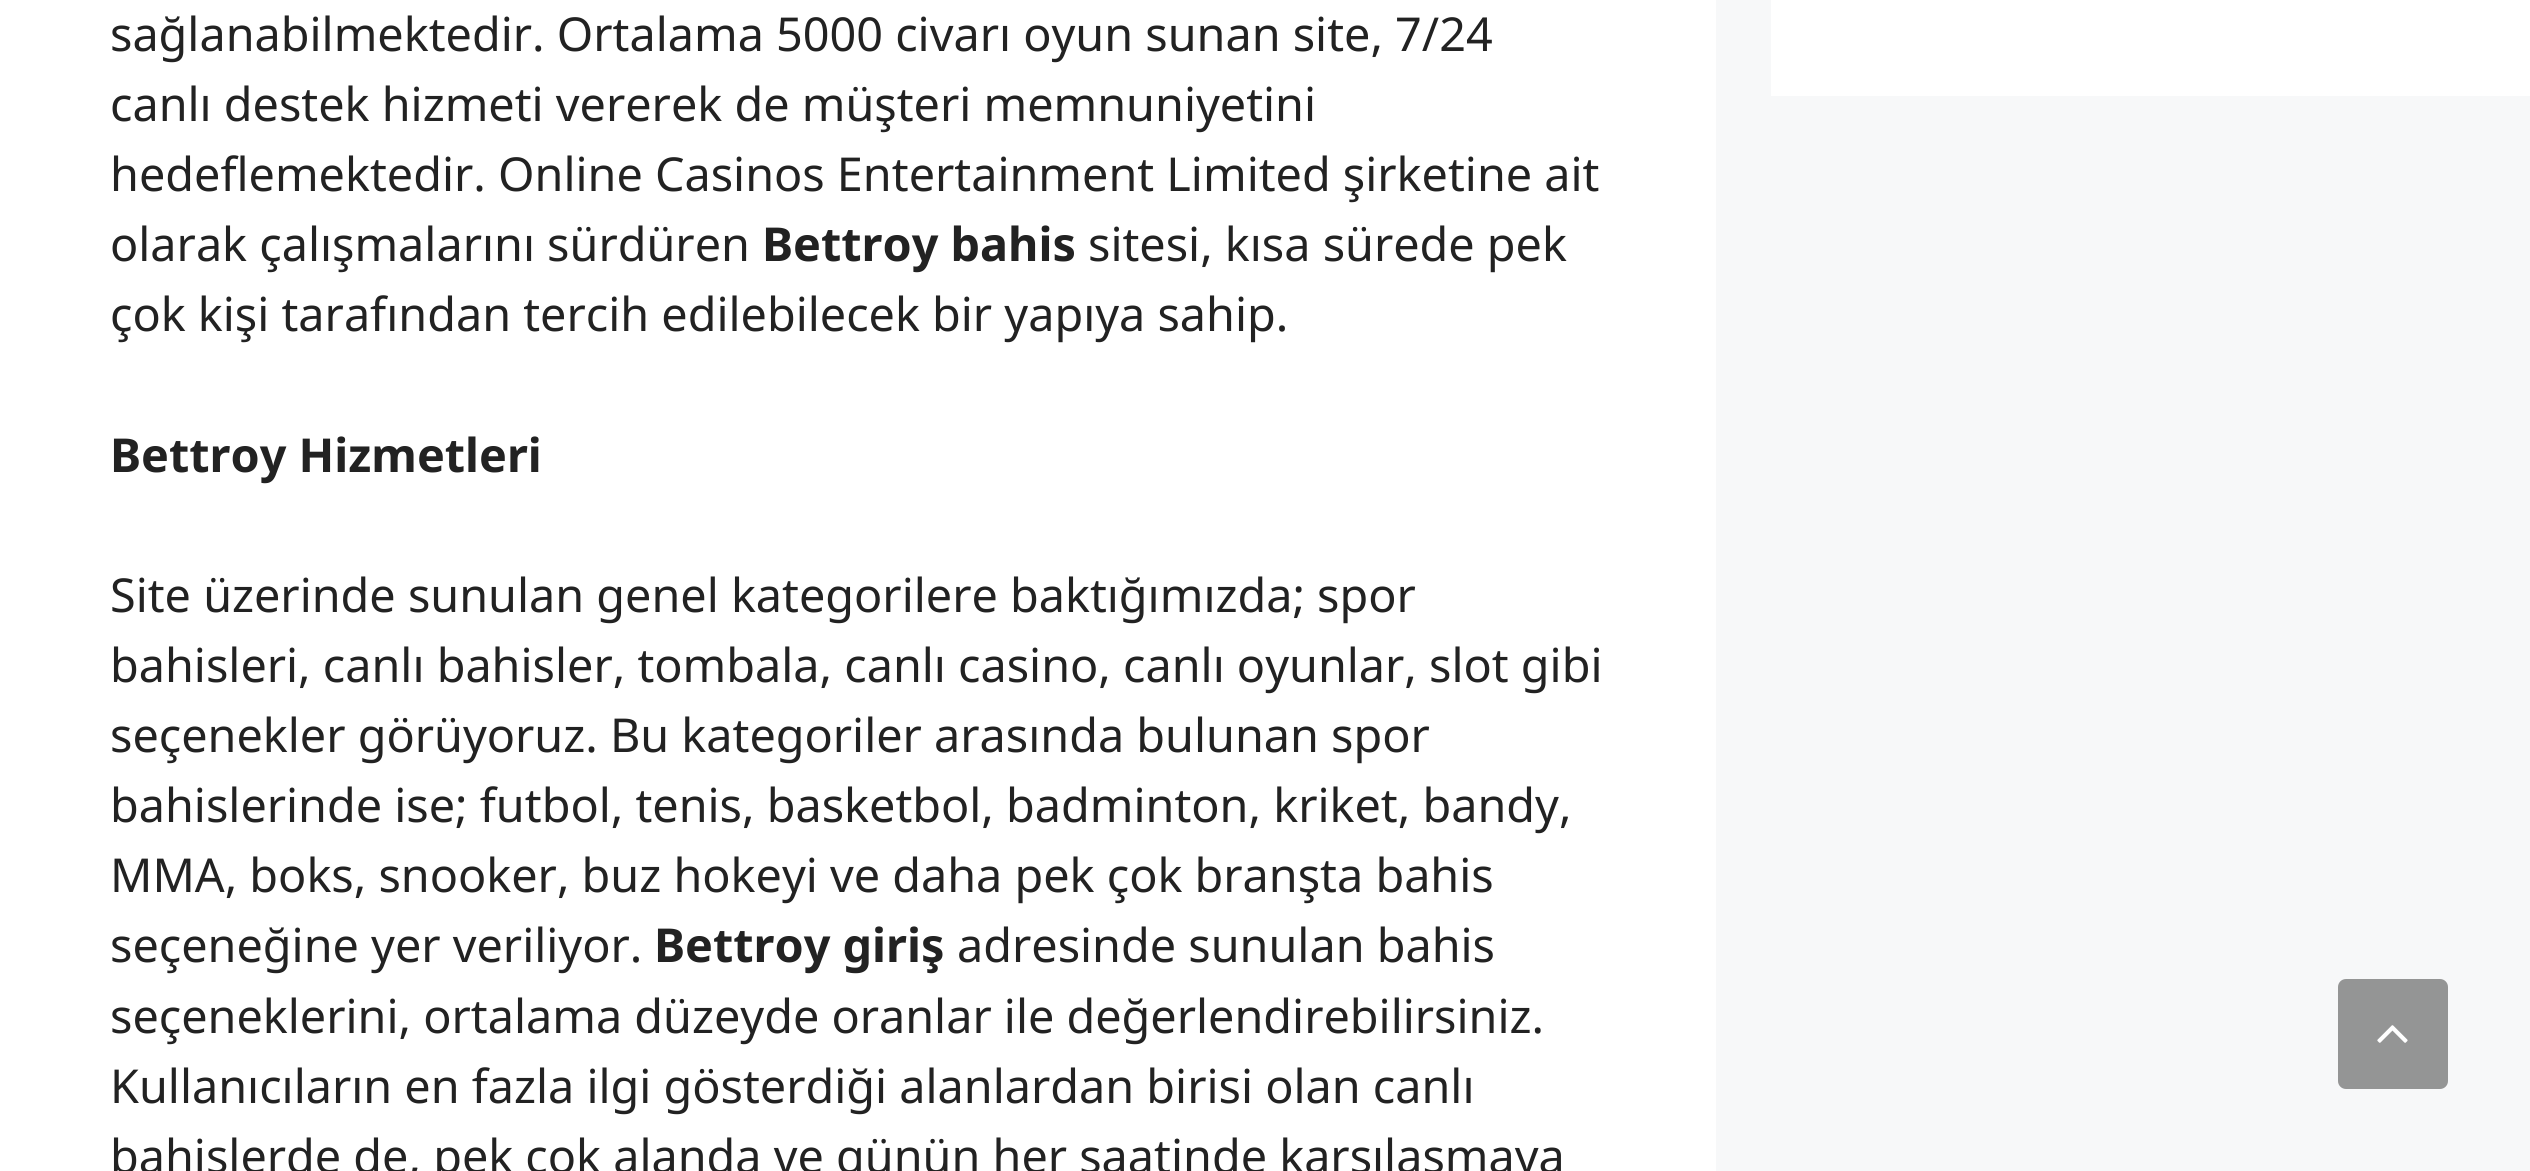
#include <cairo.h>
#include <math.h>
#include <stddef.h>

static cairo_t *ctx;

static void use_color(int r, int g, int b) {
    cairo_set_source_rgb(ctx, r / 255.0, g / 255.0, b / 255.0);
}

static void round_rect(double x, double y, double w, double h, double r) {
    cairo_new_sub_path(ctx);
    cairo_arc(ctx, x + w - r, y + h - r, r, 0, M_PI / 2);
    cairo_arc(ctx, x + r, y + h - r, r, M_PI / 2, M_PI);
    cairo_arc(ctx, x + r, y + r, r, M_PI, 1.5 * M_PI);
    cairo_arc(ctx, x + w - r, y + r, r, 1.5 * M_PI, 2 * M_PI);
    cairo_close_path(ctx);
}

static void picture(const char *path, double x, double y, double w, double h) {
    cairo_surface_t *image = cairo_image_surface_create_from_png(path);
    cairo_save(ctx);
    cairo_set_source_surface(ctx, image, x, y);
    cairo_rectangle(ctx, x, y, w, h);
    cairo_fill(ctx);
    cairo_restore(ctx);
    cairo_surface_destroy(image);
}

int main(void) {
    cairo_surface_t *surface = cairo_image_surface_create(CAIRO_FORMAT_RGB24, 2530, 1171);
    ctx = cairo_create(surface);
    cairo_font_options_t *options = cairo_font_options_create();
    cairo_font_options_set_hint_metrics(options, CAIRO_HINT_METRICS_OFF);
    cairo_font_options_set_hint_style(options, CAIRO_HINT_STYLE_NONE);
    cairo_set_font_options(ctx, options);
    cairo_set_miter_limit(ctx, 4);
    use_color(247, 248, 249);
    cairo_paint(ctx);
    use_color(255, 255, 255);
    cairo_rectangle(ctx, 0, 0, 1716, 1171);
    cairo_fill(ctx);
    cairo_select_font_face(ctx, "Noto Sans", CAIRO_FONT_SLANT_NORMAL, CAIRO_FONT_WEIGHT_NORMAL);
    cairo_set_font_size(ctx, 46.75);
    use_color(34, 34, 34);
    cairo_move_to(ctx, 110, 51);
    cairo_show_text(ctx, "sağlanabilmektedir. Ortalama 5000 civarı oyun sunan site, 7/24");
    cairo_move_to(ctx, 110, 121);
    cairo_show_text(ctx, "canlı destek hizmeti vererek de müşteri memnuniyetini");
    cairo_move_to(ctx, 110, 191);
    cairo_show_text(ctx, "hedeflemektedir. Online Casinos Entertainment Limited şirketine ait");
    cairo_move_to(ctx, 110, 261);
    cairo_show_text(ctx, "olarak çalışmalarını sürdüren");
    cairo_select_font_face(ctx, "Noto Sans", CAIRO_FONT_SLANT_NORMAL, CAIRO_FONT_WEIGHT_BOLD);
    cairo_move_to(ctx, 762, 261);
    cairo_show_text(ctx, "Bettroy bahis");
    cairo_select_font_face(ctx, "Noto Sans", CAIRO_FONT_SLANT_NORMAL, CAIRO_FONT_WEIGHT_NORMAL);
    cairo_move_to(ctx, 1088, 261);
    cairo_show_text(ctx, "sitesi, kısa sürede pek");
    cairo_move_to(ctx, 110, 331);
    cairo_show_text(ctx, "çok kişi tarafından tercih edilebilecek bir yapıya sahip.");
    cairo_select_font_face(ctx, "Noto Sans", CAIRO_FONT_SLANT_NORMAL, CAIRO_FONT_WEIGHT_BOLD);
    cairo_move_to(ctx, 110, 472);
    cairo_show_text(ctx, "Bettroy Hizmetleri");
    cairo_select_font_face(ctx, "Noto Sans", CAIRO_FONT_SLANT_NORMAL, CAIRO_FONT_WEIGHT_NORMAL);
    cairo_move_to(ctx, 110, 612);
    cairo_show_text(ctx, "Site üzerinde sunulan genel kategorilere baktığımızda; spor");
    cairo_move_to(ctx, 110, 682);
    cairo_show_text(ctx, "bahisleri, canlı bahisler, tombala, canlı casino, canlı oyunlar, slot gibi");
    cairo_move_to(ctx, 110, 752);
    cairo_show_text(ctx, "seçenekler görüyoruz. Bu kategoriler arasında bulunan spor");
    cairo_move_to(ctx, 110, 822);
    cairo_show_text(ctx, "bahislerinde ise; futbol, tenis, basketbol, badminton, kriket, bandy,");
    cairo_move_to(ctx, 110, 892);
    cairo_show_text(ctx, "MMA, boks, snooker, buz hokeyi ve daha pek çok branşta bahis");
    cairo_move_to(ctx, 110, 962);
    cairo_show_text(ctx, "seçeneğine yer veriliyor.");
    cairo_select_font_face(ctx, "Noto Sans", CAIRO_FONT_SLANT_NORMAL, CAIRO_FONT_WEIGHT_BOLD);
    cairo_move_to(ctx, 654, 962);
    cairo_show_text(ctx, "Bettroy giriş");
    cairo_select_font_face(ctx, "Noto Sans", CAIRO_FONT_SLANT_NORMAL, CAIRO_FONT_WEIGHT_NORMAL);
    cairo_move_to(ctx, 957, 962);
    cairo_show_text(ctx, "adresinde sunulan bahis");
    cairo_move_to(ctx, 110, 1033);
    cairo_show_text(ctx, "seçeneklerini, ortalama düzeyde oranlar ile değerlendirebilirsiniz.");
    cairo_move_to(ctx, 110, 1103);
    cairo_show_text(ctx, "Kullanıcıların en fazla ilgi gösterdiği alanlardan birisi olan canlı");
    cairo_move_to(ctx, 110, 1173);
    cairo_show_text(ctx, "bahislerde de, pek çok alanda ve günün her saatinde karşılaşmaya");
    use_color(255, 255, 255);
    cairo_rectangle(ctx, 1771, 0, 759, 96);
    cairo_fill(ctx);
    use_color(148, 149, 149);
    round_rect(2338, 979, 110, 110, 8);
    cairo_fill(ctx);
    picture("img1.png", 2377, 1025, 31, 18);
    cairo_surface_write_to_png(surface, "result.png");
    cairo_font_options_destroy(options);
    cairo_destroy(ctx);
    cairo_surface_destroy(surface);
    return 0;
}
